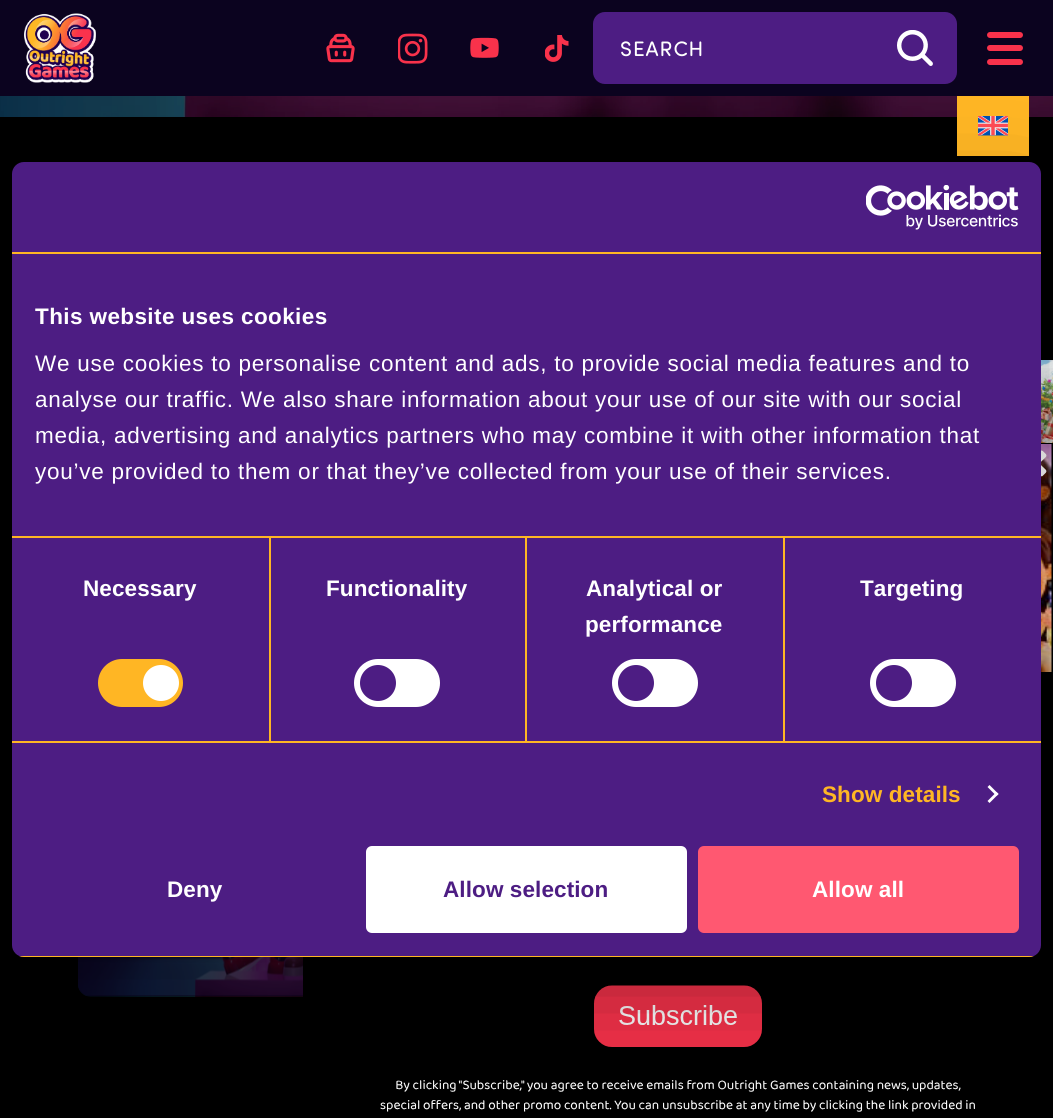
#include <cairo.h>
#include <math.h>
#include <stddef.h>

static cairo_t *ctx;

static void use_color(int r, int g, int b) {
    cairo_set_source_rgb(ctx, r / 255.0, g / 255.0, b / 255.0);
}

static void spaced_text(double x, double y, const char *s, double letter, double word) {
    cairo_move_to(ctx, x, y);
    while (*s) {
        char ch[5] = {0};
        int n = 0;
        do ch[n++] = *s++; while ((*s & 0xC0) == 0x80);
        cairo_show_text(ctx, ch);
        cairo_rel_move_to(ctx, letter + word * (*ch == ' '), 0);
    }
}

static void round_rect(double x, double y, double w, double h, double r) {
    cairo_new_sub_path(ctx);
    cairo_arc(ctx, x + w - r, y + h - r, r, 0, M_PI / 2);
    cairo_arc(ctx, x + r, y + h - r, r, M_PI / 2, M_PI);
    cairo_arc(ctx, x + r, y + r, r, M_PI, 1.5 * M_PI);
    cairo_arc(ctx, x + w - r, y + r, r, 1.5 * M_PI, 2 * M_PI);
    cairo_close_path(ctx);
}

static void shadow(double x, double y, double w, double h, double r, double blur, double alpha) {
    cairo_push_group_with_content(ctx, CAIRO_CONTENT_ALPHA);
    cairo_set_operator(ctx, CAIRO_OPERATOR_SOURCE);
    for (int i = 15; i >= -15 && fmin(w, h) + blur * i / 3 > 0; i -= 2) {
        double e = blur * i / 6;
        cairo_set_source_rgba(ctx, 0, 0, 0, alpha * erfc((i - 1) / 8.5) / 2);
        round_rect(x - e, y - e, w + 2 * e, h + 2 * e, fmax(0, fmin(r + e + blur * .6, fmin(w, h) / 2 + e)));
        cairo_fill(ctx);
    }
    cairo_pattern_t *soft = cairo_pop_group(ctx);
    cairo_mask(ctx, soft);
    cairo_pattern_destroy(soft);
}

static void picture(const char *path, double x, double y, double w, double h) {
    cairo_surface_t *image = cairo_image_surface_create_from_png(path);
    cairo_save(ctx);
    cairo_set_source_surface(ctx, image, x, y);
    cairo_rectangle(ctx, x, y, w, h);
    cairo_fill(ctx);
    cairo_restore(ctx);
    cairo_surface_destroy(image);
}

int main(void) {
    cairo_surface_t *surface = cairo_image_surface_create(CAIRO_FORMAT_RGB24, 1053, 1118);
    ctx = cairo_create(surface);
    cairo_font_options_t *options = cairo_font_options_create();
    cairo_font_options_set_hint_metrics(options, CAIRO_HINT_METRICS_OFF);
    cairo_font_options_set_hint_style(options, CAIRO_HINT_STYLE_NONE);
    cairo_set_font_options(ctx, options);
    cairo_set_miter_limit(ctx, 4);
    cairo_pattern_t *gradient;
    use_color(0, 0, 0);
    cairo_paint(ctx);
    use_color(11, 3, 31);
    cairo_rectangle(ctx, 0, 0, 1053, 96);
    cairo_fill(ctx);
    picture("img1.png", 24, 13, 72, 70);
    picture("img2.png", 326, 33, 29, 30);
    picture("img3.png", 398, 33, 30, 31);
    picture("img4.png", 470, 37, 29, 21);
    picture("img5.png", 545, 35, 24, 27);
    use_color(77, 29, 131);
    round_rect(594.5, 13.5, 361, 69, 10.5);
    cairo_fill_preserve(ctx);
    cairo_set_line_width(ctx, 3);
    cairo_stroke(ctx);
    cairo_select_font_face(ctx, "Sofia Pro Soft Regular", CAIRO_FONT_SLANT_NORMAL, CAIRO_FONT_WEIGHT_NORMAL);
    cairo_set_font_size(ctx, 21);
    use_color(255, 255, 255);
    spaced_text(620, 56, "SEARCH", 1, 0);
    picture("img6.png", 897, 30, 36, 36);
    use_color(249, 50, 75);
    round_rect(987, 32, 36, 6, 3);
    cairo_fill(ctx);
    round_rect(987, 45, 36, 6, 3);
    cairo_fill(ctx);
    round_rect(987, 59, 36, 6, 3);
    cairo_fill(ctx);
    picture("img8.png", 0, 96, 1053, 21);
    use_color(255, 182, 36);
    cairo_rectangle(ctx, 957, 96, 72, 60);
    cairo_fill(ctx);
    picture("img7.png", 978, 116, 30, 20);
    picture("img9.png", 1041, 360, 12, 83);
    gradient = cairo_pattern_create_linear(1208, 672, 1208, 360);
    cairo_pattern_add_color_stop_rgba(gradient, 0.1, 0.043, 0.012, 0.122, 0.75);
    cairo_pattern_add_color_stop_rgba(gradient, 1, 0.043, 0.012, 0.122, 0);
    cairo_set_source(ctx, gradient);
    cairo_pattern_destroy(gradient);
    cairo_rectangle(ctx, 1041, 368, 12, 75);
    cairo_fill(ctx);
    picture("img10.png", 78, 957, 225, 40);
    gradient = cairo_pattern_create_linear(299, 996, 299, 684);
    cairo_pattern_add_color_stop_rgba(gradient, 0.1, 0.043, 0.012, 0.122, 0.75);
    cairo_pattern_add_color_stop_rgba(gradient, 1, 0.043, 0.012, 0.122, 0);
    cairo_set_source(ctx, gradient);
    cairo_pattern_destroy(gradient);
    round_rect(78, 684, 443, 312, 12);
    cairo_fill(ctx);
    picture("img12.png", 303, 443, 750, 669);
    use_color(0, 0, 0);
    shadow(12, 210, 1029, 795, 12, 51, 0.3);
    use_color(77, 29, 131);
    round_rect(12, 162, 1029, 795, 12);
    cairo_fill(ctx);
    use_color(255, 182, 36);
    cairo_rectangle(ctx, 12, 252, 1029, 2);
    cairo_fill(ctx);
    picture("img11.png", 866, 185, 153, 45);
    cairo_rectangle(ctx, 269, 537, 2, 204);
    cairo_fill(ctx);
    cairo_rectangle(ctx, 525, 537, 2, 204);
    cairo_fill(ctx);
    cairo_rectangle(ctx, 783, 537, 2, 204);
    cairo_fill(ctx);
    cairo_rectangle(ctx, 12, 536, 1029, 2);
    cairo_fill(ctx);
    cairo_select_font_face(ctx, "Liberation Sans", CAIRO_FONT_SLANT_NORMAL, CAIRO_FONT_WEIGHT_BOLD);
    cairo_set_font_size(ctx, 22.5);
    use_color(255, 255, 255);
    spaced_text(35, 324, "This website uses cookies", 0.4, 0);
    cairo_select_font_face(ctx, "Liberation Sans", CAIRO_FONT_SLANT_NORMAL, CAIRO_FONT_WEIGHT_NORMAL);
    spaced_text(35, 371, "We use cookies to personalise content and ads, to provide social media features and to", 0.75, 0);
    spaced_text(35, 407, "analyse our traffic. We also share information about your use of our site with our social", 0.75, 0);
    spaced_text(35, 443, "media, advertising and analytics partners who may combine it with other information that", 0.75, 0);
    spaced_text(35, 479, "you’ve provided to them or that they’ve collected from your use of their services.", 0.75, 0);
    use_color(255, 182, 36);
    cairo_rectangle(ctx, 12, 741, 1029, 2);
    cairo_fill(ctx);
    cairo_select_font_face(ctx, "Liberation Sans", CAIRO_FONT_SLANT_NORMAL, CAIRO_FONT_WEIGHT_BOLD);
    use_color(255, 255, 255);
    spaced_text(83, 596, "Necessary", 0.1, 0);
    use_color(255, 182, 36);
    round_rect(98, 659, 85, 48, 24);
    cairo_fill(ctx);
    use_color(255, 255, 255);
    cairo_arc(ctx, 161, 683, 18, 0, 2 * M_PI);
    cairo_fill(ctx);
    spaced_text(326, 596, "Functionality", 0.1, 0);
    round_rect(354, 659, 86, 48, 24);
    cairo_fill(ctx);
    use_color(77, 29, 131);
    cairo_arc(ctx, 378, 683, 18, 0, 2 * M_PI);
    cairo_fill(ctx);
    use_color(255, 255, 255);
    spaced_text(586, 596, "Analytical or", 0.1, 0);
    spaced_text(585, 632, "performance", 0.1, 0);
    round_rect(612, 659, 86, 48, 24);
    cairo_fill(ctx);
    use_color(77, 29, 131);
    cairo_arc(ctx, 636, 683, 18, 0, 2 * M_PI);
    cairo_fill(ctx);
    use_color(255, 255, 255);
    spaced_text(860, 596, "Targeting", 0.1, 0);
    round_rect(870, 659, 86, 48, 24);
    cairo_fill(ctx);
    use_color(77, 29, 131);
    cairo_arc(ctx, 894, 683, 18, 0, 2 * M_PI);
    cairo_fill(ctx);
    use_color(255, 182, 36);
    spaced_text(822, 802, "Show details", 0.1, 0);
    use_color(255, 255, 255);
    cairo_new_path(ctx);
    cairo_move_to(ctx, 989.5, 785);
    cairo_line_to(ctx, 998.5, 794);
    cairo_line_to(ctx, 996.5, 796);
    cairo_line_to(ctx, 987.5, 787);
    cairo_close_path(ctx);
    cairo_fill(ctx);
    cairo_new_path(ctx);
    cairo_move_to(ctx, 996.5, 792);
    cairo_line_to(ctx, 998.5, 794);
    cairo_line_to(ctx, 989.5, 803);
    cairo_line_to(ctx, 987.5, 801);
    cairo_close_path(ctx);
    cairo_fill(ctx);
    cairo_save(ctx);
    round_rect(12, 162, 1029, 795, 12);
    cairo_clip(ctx);
    use_color(255, 182, 36);
    cairo_rectangle(ctx, 12, 956, 1029, 1);
    cairo_fill(ctx);
    cairo_restore(ctx);
    spaced_text(167, 897, "Deny", 0.1, 0);
    round_rect(367.5, 847.5, 318, 84, 4.5);
    cairo_fill_preserve(ctx);
    cairo_stroke(ctx);
    use_color(77, 29, 131);
    spaced_text(443, 897, "Allow selection", 0.1, 0);
    use_color(255, 88, 113);
    round_rect(699.5, 847.5, 318, 84, 4.5);
    cairo_fill_preserve(ctx);
    cairo_stroke(ctx);
    use_color(255, 255, 255);
    spaced_text(812, 897, "Allow all", 0.1, 0);
    cairo_surface_write_to_png(surface, "result.png");
    cairo_font_options_destroy(options);
    cairo_destroy(ctx);
    cairo_surface_destroy(surface);
    return 0;
}
